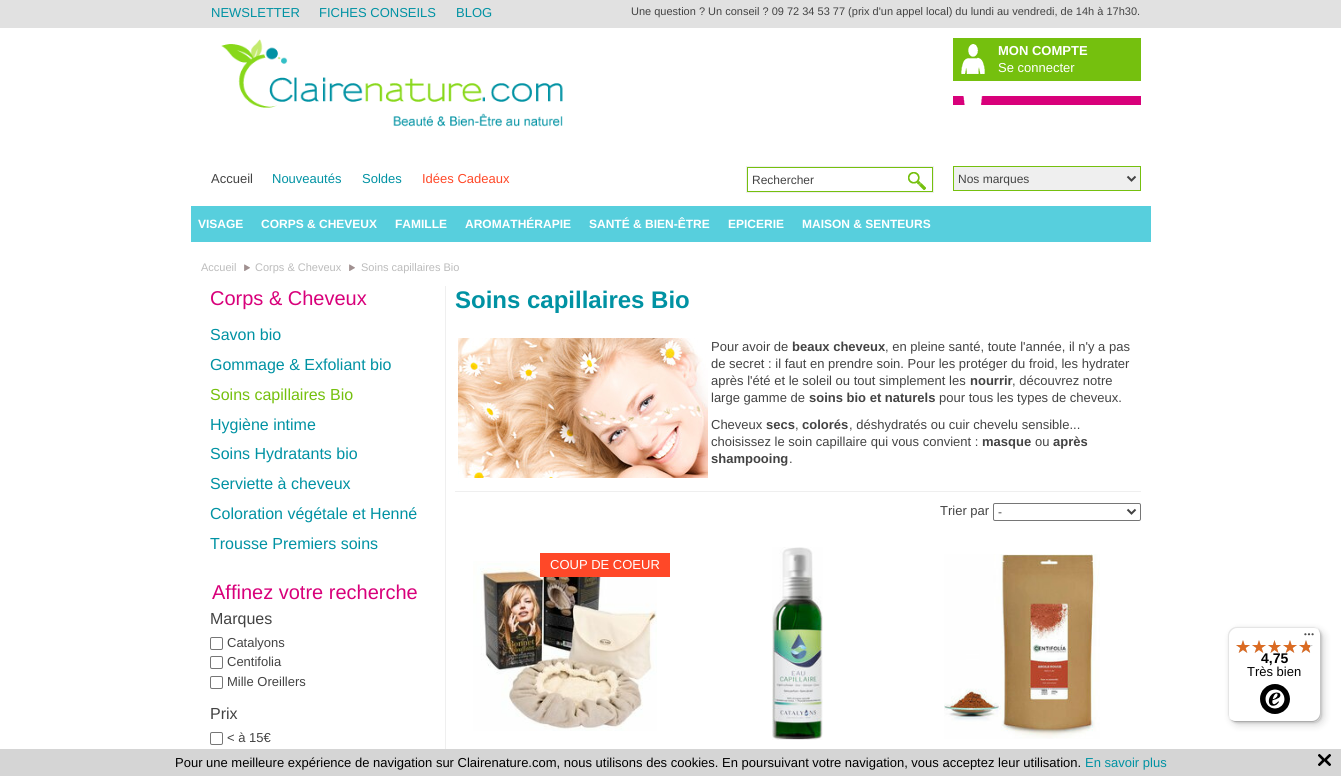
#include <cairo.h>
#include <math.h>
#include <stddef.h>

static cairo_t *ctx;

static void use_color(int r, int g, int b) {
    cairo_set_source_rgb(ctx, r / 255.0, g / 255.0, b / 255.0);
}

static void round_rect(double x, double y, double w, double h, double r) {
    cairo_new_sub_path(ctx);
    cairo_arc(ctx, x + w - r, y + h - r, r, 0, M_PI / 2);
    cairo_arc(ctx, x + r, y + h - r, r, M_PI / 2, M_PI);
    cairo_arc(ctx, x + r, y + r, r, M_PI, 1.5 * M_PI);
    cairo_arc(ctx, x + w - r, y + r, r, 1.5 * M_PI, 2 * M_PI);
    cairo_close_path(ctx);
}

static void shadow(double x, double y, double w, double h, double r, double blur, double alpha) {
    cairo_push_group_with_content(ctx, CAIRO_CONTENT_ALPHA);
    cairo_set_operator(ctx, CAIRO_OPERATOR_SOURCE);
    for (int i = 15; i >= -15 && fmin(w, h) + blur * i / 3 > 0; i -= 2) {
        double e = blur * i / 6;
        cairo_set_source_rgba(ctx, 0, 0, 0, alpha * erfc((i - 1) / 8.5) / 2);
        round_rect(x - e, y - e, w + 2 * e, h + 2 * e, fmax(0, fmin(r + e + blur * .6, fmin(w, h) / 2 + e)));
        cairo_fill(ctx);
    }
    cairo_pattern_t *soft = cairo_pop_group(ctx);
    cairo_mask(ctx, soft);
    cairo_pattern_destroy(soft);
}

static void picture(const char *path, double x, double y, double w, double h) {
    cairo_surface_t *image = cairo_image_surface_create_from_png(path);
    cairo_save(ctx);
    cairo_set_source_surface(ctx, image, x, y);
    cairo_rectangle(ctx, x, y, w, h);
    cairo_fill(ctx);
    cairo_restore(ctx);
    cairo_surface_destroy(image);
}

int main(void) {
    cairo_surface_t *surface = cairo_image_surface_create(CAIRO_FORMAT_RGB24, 1341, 776);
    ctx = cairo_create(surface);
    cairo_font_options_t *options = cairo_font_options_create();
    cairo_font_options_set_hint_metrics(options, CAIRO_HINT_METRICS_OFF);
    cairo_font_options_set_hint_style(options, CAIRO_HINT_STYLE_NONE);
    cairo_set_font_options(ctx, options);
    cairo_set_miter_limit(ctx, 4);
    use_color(255, 255, 255);
    cairo_paint(ctx);
    use_color(225, 225, 225);
    cairo_rectangle(ctx, 0, 0, 1341, 28);
    cairo_fill(ctx);
    cairo_select_font_face(ctx, "Liberation Sans", CAIRO_FONT_SLANT_NORMAL, CAIRO_FONT_WEIGHT_NORMAL);
    cairo_set_font_size(ctx, 13);
    use_color(0, 146, 163);
    cairo_move_to(ctx, 211, 17);
    cairo_show_text(ctx, "NEWSLETTER");
    cairo_move_to(ctx, 319, 17);
    cairo_show_text(ctx, "FICHES CONSEILS");
    cairo_move_to(ctx, 456, 17);
    cairo_show_text(ctx, "BLOG");
    cairo_set_font_size(ctx, 11);
    use_color(67, 67, 67);
    cairo_move_to(ctx, 631, 15);
    cairo_show_text(ctx, "Une question ? Un conseil ? 09 72 34 53 77 (prix d'un appel local) du lundi au vendredi, de 14h à 17h30.");
    picture("img1.png", 221, 39, 342, 88);
    use_color(117, 192, 14);
    cairo_rectangle(ctx, 953, 38, 188, 43);
    cairo_fill(ctx);
    picture("img2.png", 961, 44, 24, 30);
    cairo_select_font_face(ctx, "Liberation Sans", CAIRO_FONT_SLANT_NORMAL, CAIRO_FONT_WEIGHT_BOLD);
    cairo_set_font_size(ctx, 13);
    use_color(255, 255, 255);
    cairo_move_to(ctx, 998, 55);
    cairo_show_text(ctx, "MON COMPTE");
    cairo_select_font_face(ctx, "Liberation Sans", CAIRO_FONT_SLANT_NORMAL, CAIRO_FONT_WEIGHT_NORMAL);
    cairo_move_to(ctx, 998, 72);
    cairo_show_text(ctx, "Se connecter");
    use_color(216, 0, 122);
    cairo_rectangle(ctx, 953, 96, 188, 9);
    cairo_fill(ctx);
    picture("img3.png", 963, 96, 20, 9);
    use_color(67, 67, 67);
    cairo_move_to(ctx, 211, 183);
    cairo_show_text(ctx, "Accueil");
    use_color(0, 146, 163);
    cairo_move_to(ctx, 272, 183);
    cairo_show_text(ctx, "Nouveautés");
    cairo_move_to(ctx, 362, 183);
    cairo_show_text(ctx, "Soldes");
    use_color(255, 72, 40);
    cairo_move_to(ctx, 422, 183);
    cairo_show_text(ctx, "Idées Cadeaux");
    cairo_rectangle(ctx, 746.5, 166.5, 187, 26);
    use_color(239, 239, 239);
    cairo_set_line_width(ctx, 1);
    cairo_stroke(ctx);
    cairo_rectangle(ctx, 747.5, 167.5, 185, 24);
    use_color(117, 192, 14);
    cairo_stroke(ctx);
    cairo_set_font_size(ctx, 12);
    use_color(67, 67, 67);
    cairo_move_to(ctx, 752, 184);
    cairo_show_text(ctx, "Rechercher");
    picture("img4.png", 908, 172, 18, 18);
    use_color(239, 239, 239);
    cairo_rectangle(ctx, 953.5, 166.5, 187, 24);
    cairo_fill_preserve(ctx);
    use_color(117, 192, 14);
    cairo_stroke(ctx);
    cairo_new_path(ctx);
    cairo_move_to(ctx, 1127.5, 176.5);
    cairo_line_to(ctx, 1131.5, 180.5);
    cairo_line_to(ctx, 1135.5, 176.5);
    use_color(67, 67, 67);
    cairo_set_line_width(ctx, 2);
    cairo_stroke(ctx);
    cairo_move_to(ctx, 958, 183);
    cairo_show_text(ctx, "Nos marques");
    use_color(87, 207, 221);
    cairo_rectangle(ctx, 191, 206, 960, 36);
    cairo_fill(ctx);
    cairo_select_font_face(ctx, "Liberation Sans", CAIRO_FONT_SLANT_NORMAL, CAIRO_FONT_WEIGHT_BOLD);
    use_color(255, 255, 255);
    cairo_move_to(ctx, 198, 228);
    cairo_show_text(ctx, "VISAGE");
    cairo_move_to(ctx, 261, 228);
    cairo_show_text(ctx, "CORPS & CHEVEUX");
    cairo_move_to(ctx, 395, 228);
    cairo_show_text(ctx, "FAMILLE");
    cairo_move_to(ctx, 465, 228);
    cairo_show_text(ctx, "AROMATHÉRAPIE");
    cairo_move_to(ctx, 589, 228);
    cairo_show_text(ctx, "SANTÉ & BIEN-ÊTRE");
    cairo_move_to(ctx, 728, 228);
    cairo_show_text(ctx, "EPICERIE");
    cairo_move_to(ctx, 802, 228);
    cairo_show_text(ctx, "MAISON & SENTEURS");
    cairo_select_font_face(ctx, "Liberation Sans", CAIRO_FONT_SLANT_NORMAL, CAIRO_FONT_WEIGHT_NORMAL);
    cairo_set_font_size(ctx, 11);
    use_color(188, 188, 188);
    cairo_move_to(ctx, 201, 271);
    cairo_show_text(ctx, "Accueil");
    picture("img5.png", 244, 264, 6, 7);
    cairo_move_to(ctx, 255, 271);
    cairo_show_text(ctx, "Corps & Cheveux");
    picture("img5.png", 349, 264, 6, 7);
    cairo_move_to(ctx, 361, 271);
    cairo_show_text(ctx, "Soins capillaires Bio");
    cairo_set_font_size(ctx, 20);
    use_color(216, 0, 122);
    cairo_move_to(ctx, 210, 305);
    cairo_show_text(ctx, "Corps & Cheveux");
    cairo_set_font_size(ctx, 16);
    use_color(0, 146, 163);
    cairo_move_to(ctx, 210, 340);
    cairo_show_text(ctx, "Savon bio");
    cairo_move_to(ctx, 210, 370);
    cairo_show_text(ctx, "Gommage & Exfoliant bio");
    use_color(117, 192, 14);
    cairo_move_to(ctx, 210, 400);
    cairo_show_text(ctx, "Soins capillaires Bio");
    use_color(0, 146, 163);
    cairo_move_to(ctx, 210, 430);
    cairo_show_text(ctx, "Hygiène intime");
    cairo_move_to(ctx, 210, 459);
    cairo_show_text(ctx, "Soins Hydratants bio");
    cairo_move_to(ctx, 210, 489);
    cairo_show_text(ctx, "Serviette à cheveux");
    cairo_move_to(ctx, 210, 519);
    cairo_show_text(ctx, "Coloration végétale et Henné");
    cairo_move_to(ctx, 210, 549);
    cairo_show_text(ctx, "Trousse Premiers soins");
    cairo_set_font_size(ctx, 20);
    use_color(216, 0, 122);
    cairo_move_to(ctx, 212, 599);
    cairo_show_text(ctx, "Affinez votre recherche");
    cairo_set_font_size(ctx, 16);
    use_color(67, 67, 67);
    cairo_move_to(ctx, 210, 624);
    cairo_show_text(ctx, "Marques");
    round_rect(210.5, 637.5, 12, 12, 1.5);
    use_color(118, 118, 118);
    cairo_set_line_width(ctx, 1);
    cairo_stroke(ctx);
    cairo_set_font_size(ctx, 13);
    use_color(67, 67, 67);
    cairo_move_to(ctx, 227, 647);
    cairo_show_text(ctx, "Catalyons");
    round_rect(210.5, 656.5, 12, 12, 1.5);
    use_color(118, 118, 118);
    cairo_stroke(ctx);
    use_color(67, 67, 67);
    cairo_move_to(ctx, 227, 666);
    cairo_show_text(ctx, "Centifolia");
    round_rect(210.5, 676.5, 12, 12, 1.5);
    use_color(118, 118, 118);
    cairo_stroke(ctx);
    use_color(67, 67, 67);
    cairo_move_to(ctx, 227, 686);
    cairo_show_text(ctx, "Mille Oreillers");
    cairo_set_font_size(ctx, 16);
    cairo_move_to(ctx, 210, 719);
    cairo_show_text(ctx, "Prix");
    round_rect(210.5, 732.5, 12, 12, 1.5);
    use_color(118, 118, 118);
    cairo_stroke(ctx);
    cairo_set_font_size(ctx, 13);
    use_color(67, 67, 67);
    cairo_move_to(ctx, 227, 742);
    cairo_show_text(ctx, "< à 15€");
    use_color(239, 239, 239);
    cairo_rectangle(ctx, 445, 286, 1, 463);
    cairo_fill(ctx);
    cairo_select_font_face(ctx, "Liberation Sans", CAIRO_FONT_SLANT_NORMAL, CAIRO_FONT_WEIGHT_BOLD);
    cairo_set_font_size(ctx, 24);
    use_color(0, 146, 163);
    cairo_move_to(ctx, 455, 308);
    cairo_show_text(ctx, "Soins capillaires Bio");
    picture("img6.png", 458, 338, 250, 140);
    cairo_select_font_face(ctx, "Liberation Sans", CAIRO_FONT_SLANT_NORMAL, CAIRO_FONT_WEIGHT_NORMAL);
    cairo_set_font_size(ctx, 13);
    use_color(67, 67, 67);
    cairo_move_to(ctx, 711, 351);
    cairo_show_text(ctx, "Pour avoir de");
    cairo_select_font_face(ctx, "Liberation Sans", CAIRO_FONT_SLANT_NORMAL, CAIRO_FONT_WEIGHT_BOLD);
    cairo_move_to(ctx, 792, 351);
    cairo_show_text(ctx, "beaux cheveux");
    cairo_select_font_face(ctx, "Liberation Sans", CAIRO_FONT_SLANT_NORMAL, CAIRO_FONT_WEIGHT_NORMAL);
    cairo_move_to(ctx, 885, 351);
    cairo_show_text(ctx, ", en pleine santé, toute l'année, il n'y a pas");
    cairo_move_to(ctx, 711, 368);
    cairo_show_text(ctx, "de secret : il faut en prendre soin. Pour les protéger du froid, les hydrater");
    cairo_move_to(ctx, 711, 385);
    cairo_show_text(ctx, "après l'été et le soleil ou tout simplement les");
    cairo_select_font_face(ctx, "Liberation Sans", CAIRO_FONT_SLANT_NORMAL, CAIRO_FONT_WEIGHT_BOLD);
    cairo_move_to(ctx, 970, 385);
    cairo_show_text(ctx, "nourrir");
    cairo_select_font_face(ctx, "Liberation Sans", CAIRO_FONT_SLANT_NORMAL, CAIRO_FONT_WEIGHT_NORMAL);
    cairo_move_to(ctx, 1012, 385);
    cairo_show_text(ctx, ", découvrez notre");
    cairo_move_to(ctx, 711, 402);
    cairo_show_text(ctx, "large gamme de");
    cairo_select_font_face(ctx, "Liberation Sans", CAIRO_FONT_SLANT_NORMAL, CAIRO_FONT_WEIGHT_BOLD);
    cairo_move_to(ctx, 809, 402);
    cairo_show_text(ctx, "soins bio et naturels");
    cairo_select_font_face(ctx, "Liberation Sans", CAIRO_FONT_SLANT_NORMAL, CAIRO_FONT_WEIGHT_NORMAL);
    cairo_move_to(ctx, 939, 402);
    cairo_show_text(ctx, "pour tous les types de cheveux.");
    cairo_move_to(ctx, 711, 429);
    cairo_show_text(ctx, "Cheveux");
    cairo_select_font_face(ctx, "Liberation Sans", CAIRO_FONT_SLANT_NORMAL, CAIRO_FONT_WEIGHT_BOLD);
    cairo_move_to(ctx, 766, 429);
    cairo_show_text(ctx, "secs");
    cairo_select_font_face(ctx, "Liberation Sans", CAIRO_FONT_SLANT_NORMAL, CAIRO_FONT_WEIGHT_NORMAL);
    cairo_move_to(ctx, 795, 429);
    cairo_show_text(ctx, ",");
    cairo_select_font_face(ctx, "Liberation Sans", CAIRO_FONT_SLANT_NORMAL, CAIRO_FONT_WEIGHT_BOLD);
    cairo_move_to(ctx, 802, 429);
    cairo_show_text(ctx, "colorés");
    cairo_select_font_face(ctx, "Liberation Sans", CAIRO_FONT_SLANT_NORMAL, CAIRO_FONT_WEIGHT_NORMAL);
    cairo_move_to(ctx, 849, 429);
    cairo_show_text(ctx, ", déshydratés ou cuir chevelu sensible...");
    cairo_move_to(ctx, 711, 446);
    cairo_show_text(ctx, "choisissez le soin capillaire qui vous convient :");
    cairo_select_font_face(ctx, "Liberation Sans", CAIRO_FONT_SLANT_NORMAL, CAIRO_FONT_WEIGHT_BOLD);
    cairo_move_to(ctx, 982, 446);
    cairo_show_text(ctx, "masque");
    cairo_select_font_face(ctx, "Liberation Sans", CAIRO_FONT_SLANT_NORMAL, CAIRO_FONT_WEIGHT_NORMAL);
    cairo_move_to(ctx, 1035, 446);
    cairo_show_text(ctx, "ou");
    cairo_select_font_face(ctx, "Liberation Sans", CAIRO_FONT_SLANT_NORMAL, CAIRO_FONT_WEIGHT_BOLD);
    cairo_move_to(ctx, 1053, 446);
    cairo_show_text(ctx, "après");
    cairo_move_to(ctx, 711, 463);
    cairo_show_text(ctx, "shampooing");
    cairo_select_font_face(ctx, "Liberation Sans", CAIRO_FONT_SLANT_NORMAL, CAIRO_FONT_WEIGHT_NORMAL);
    cairo_move_to(ctx, 789, 463);
    cairo_show_text(ctx, ".");
    use_color(239, 239, 239);
    cairo_rectangle(ctx, 455, 491, 686, 1);
    cairo_fill(ctx);
    use_color(67, 67, 67);
    cairo_move_to(ctx, 940, 515);
    cairo_show_text(ctx, "Trier par");
    round_rect(993.5, 503.5, 147, 17, 1.5);
    use_color(118, 118, 118);
    cairo_stroke(ctx);
    cairo_new_path(ctx);
    cairo_move_to(ctx, 1127.5, 509.5);
    cairo_line_to(ctx, 1131.5, 513.5);
    cairo_line_to(ctx, 1135.5, 509.5);
    use_color(67, 67, 67);
    cairo_set_line_width(ctx, 2);
    cairo_stroke(ctx);
    cairo_set_font_size(ctx, 12);
    cairo_move_to(ctx, 998, 516);
    cairo_show_text(ctx, "-");
    picture("img7.png", 473, 561, 184, 170);
    use_color(255, 72, 40);
    cairo_rectangle(ctx, 540, 553, 130, 24);
    cairo_fill(ctx);
    cairo_set_font_size(ctx, 13);
    use_color(255, 255, 255);
    cairo_move_to(ctx, 550, 569);
    cairo_show_text(ctx, "COUP DE COEUR");
    picture("img8.png", 772, 547, 51, 193);
    picture("img9.png", 944, 554, 156, 185);
    use_color(0, 0, 0);
    shadow(1231, 630, 93, 95, 8, 4, 0.15);
    shadow(1229, 628, 93, 95, 8, 1, 0.15);
    use_color(255, 255, 255);
    round_rect(1228, 627, 93, 95, 8);
    cairo_fill(ctx);
    use_color(229, 229, 229);
    cairo_new_path(ctx);
    cairo_move_to(ctx, 1237, 628);
    cairo_line_to(ctx, 1314, 628);
    cairo_curve_to(ctx, 1316, 628, 1318, 629, 1320, 631);
    cairo_curve_to(ctx, 1318, 629, 1316, 627, 1313, 627);
    cairo_line_to(ctx, 1236, 627);
    cairo_curve_to(ctx, 1232, 627, 1228, 631, 1228, 635);
    cairo_line_to(ctx, 1228, 714);
    cairo_curve_to(ctx, 1228, 717, 1230, 719, 1232, 721);
    cairo_curve_to(ctx, 1230, 719, 1229, 717, 1229, 715);
    cairo_line_to(ctx, 1229, 636);
    cairo_curve_to(ctx, 1229, 632, 1233, 628, 1237, 628);
    cairo_close_path(ctx);
    cairo_fill(ctx);
    use_color(204, 204, 204);
    cairo_new_path(ctx);
    cairo_move_to(ctx, 1229, 718);
    cairo_curve_to(ctx, 1231, 720, 1233, 722, 1236, 722);
    cairo_line_to(ctx, 1313, 722);
    cairo_curve_to(ctx, 1317, 722, 1321, 718, 1321, 714);
    cairo_line_to(ctx, 1321, 635);
    cairo_curve_to(ctx, 1321, 632, 1319, 630, 1317, 628);
    cairo_curve_to(ctx, 1319, 630, 1320, 632, 1320, 634);
    cairo_line_to(ctx, 1320, 713);
    cairo_curve_to(ctx, 1320, 717, 1316, 721, 1312, 721);
    cairo_line_to(ctx, 1235, 721);
    cairo_curve_to(ctx, 1233, 721, 1231, 720, 1229, 718);
    cairo_close_path(ctx);
    cairo_fill(ctx);
    cairo_set_source_rgba(ctx, 0.196, 0.196, 0.196, 0.2);
    cairo_new_path(ctx);
    cairo_move_to(ctx, 1230, 719);
    cairo_curve_to(ctx, 1231, 721, 1234, 722, 1236, 722);
    cairo_line_to(ctx, 1313, 722);
    cairo_curve_to(ctx, 1317, 722, 1321, 718, 1321, 714);
    cairo_line_to(ctx, 1321, 635);
    cairo_curve_to(ctx, 1321, 633, 1320, 630, 1318, 629);
    cairo_curve_to(ctx, 1319, 630, 1320, 632, 1320, 634);
    cairo_line_to(ctx, 1320, 713);
    cairo_curve_to(ctx, 1320, 718, 1317, 721, 1312, 721);
    cairo_line_to(ctx, 1235, 721);
    cairo_curve_to(ctx, 1233, 721, 1231, 720, 1230, 719);
    cairo_close_path(ctx);
    cairo_fill(ctx);
    cairo_set_source_rgba(ctx, 1, 1, 1, 0.3);
    cairo_new_path(ctx);
    cairo_move_to(ctx, 1312, 722);
    cairo_line_to(ctx, 1313, 722);
    cairo_curve_to(ctx, 1317, 722, 1321, 718, 1321, 714);
    cairo_line_to(ctx, 1321, 635);
    cairo_curve_to(ctx, 1321, 633, 1320, 630, 1318, 629);
    cairo_curve_to(ctx, 1319, 630, 1320, 632, 1320, 634);
    cairo_line_to(ctx, 1320, 714);
    cairo_curve_to(ctx, 1320, 718, 1317, 722, 1312, 722);
    cairo_close_path(ctx);
    cairo_fill(ctx);
    picture("img10.png", 1304, 633, 10, 3);
    picture("img11.png", 1236, 640, 14, 13);
    picture("img11.png", 1252, 640, 14, 13);
    picture("img12.png", 1268, 640, 13, 13);
    picture("img11.png", 1283, 640, 14, 13);
    picture("img11.png", 1299, 640, 14, 13);
    picture("img13.png", 1236, 640, 14, 13);
    picture("img13.png", 1252, 640, 14, 13);
    picture("img14.png", 1268, 640, 13, 13);
    picture("img13.png", 1283, 640, 14, 13);
    picture("img15.png", 1299, 640, 11, 13);
    cairo_select_font_face(ctx, "Liberation Sans", CAIRO_FONT_SLANT_NORMAL, CAIRO_FONT_WEIGHT_BOLD);
    cairo_set_font_size(ctx, 14);
    use_color(0, 0, 0);
    cairo_move_to(ctx, 1261, 663);
    cairo_show_text(ctx, "4,75");
    cairo_select_font_face(ctx, "Liberation Sans", CAIRO_FONT_SLANT_NORMAL, CAIRO_FONT_WEIGHT_NORMAL);
    cairo_set_font_size(ctx, 13);
    cairo_move_to(ctx, 1247, 676);
    cairo_show_text(ctx, "Très bien");
    picture("img16.png", 1260, 684, 30, 30);
    use_color(213, 213, 213);
    cairo_rectangle(ctx, 0, 749, 1341, 27);
    cairo_fill(ctx);
    use_color(0, 0, 0);
    cairo_move_to(ctx, 175, 767);
    cairo_show_text(ctx, "Pour une meilleure expérience de navigation sur Clairenature.com, nous utilisons des cookies. En poursuivant votre navigation, vous acceptez leur utilisation.");
    use_color(0, 146, 163);
    cairo_move_to(ctx, 1085, 767);
    cairo_show_text(ctx, "En savoir plus");
    picture("img17.png", 1318, 754, 13, 12);
    cairo_surface_write_to_png(surface, "result.png");
    cairo_font_options_destroy(options);
    cairo_destroy(ctx);
    cairo_surface_destroy(surface);
    return 0;
}
